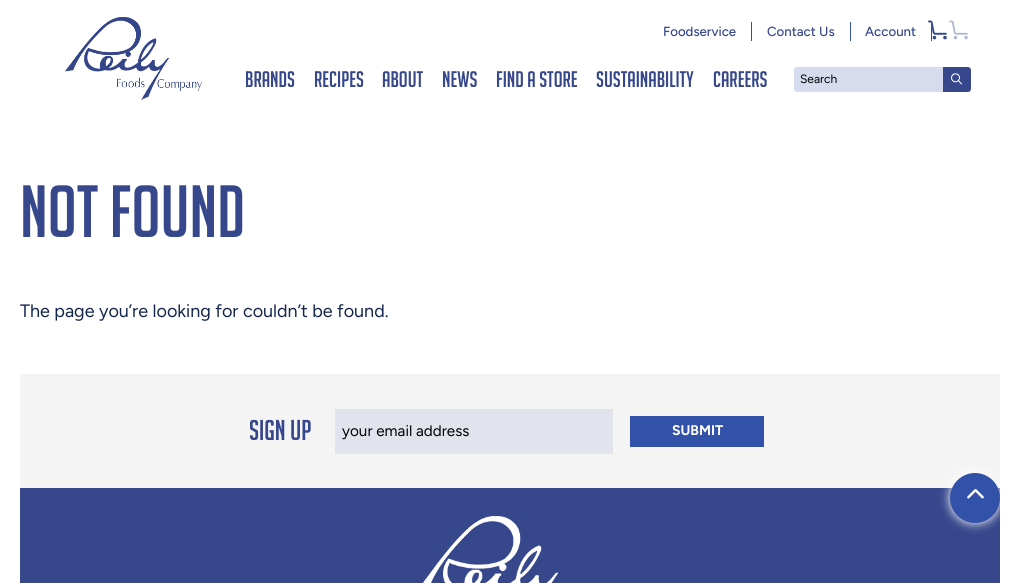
#include <cairo.h>
#include <math.h>
#include <stddef.h>

static cairo_t *ctx;

static void use_color(int r, int g, int b) {
    cairo_set_source_rgb(ctx, r / 255.0, g / 255.0, b / 255.0);
}

static void round_rect(double x, double y, double w, double h, double r) {
    cairo_new_sub_path(ctx);
    cairo_arc(ctx, x + w - r, y + h - r, r, 0, M_PI / 2);
    cairo_arc(ctx, x + r, y + h - r, r, M_PI / 2, M_PI);
    cairo_arc(ctx, x + r, y + r, r, M_PI, 1.5 * M_PI);
    cairo_arc(ctx, x + w - r, y + r, r, 1.5 * M_PI, 2 * M_PI);
    cairo_close_path(ctx);
}

static void shadow(double x, double y, double w, double h, double r, double blur, double alpha) {
    cairo_push_group_with_content(ctx, CAIRO_CONTENT_ALPHA);
    cairo_set_operator(ctx, CAIRO_OPERATOR_SOURCE);
    for (int i = 15; i >= -15 && fmin(w, h) + blur * i / 3 > 0; i -= 2) {
        double e = blur * i / 6;
        cairo_set_source_rgba(ctx, 0, 0, 0, alpha * erfc((i - 1) / 8.5) / 2);
        round_rect(x - e, y - e, w + 2 * e, h + 2 * e, fmax(0, fmin(r + e + blur * .6, fmin(w, h) / 2 + e)));
        cairo_fill(ctx);
    }
    cairo_pattern_t *soft = cairo_pop_group(ctx);
    cairo_mask(ctx, soft);
    cairo_pattern_destroy(soft);
}

static void picture(const char *path, double x, double y, double w, double h) {
    cairo_surface_t *image = cairo_image_surface_create_from_png(path);
    cairo_save(ctx);
    cairo_set_source_surface(ctx, image, x, y);
    cairo_rectangle(ctx, x, y, w, h);
    cairo_fill(ctx);
    cairo_restore(ctx);
    cairo_surface_destroy(image);
}

int main(void) {
    cairo_surface_t *surface = cairo_image_surface_create(CAIRO_FORMAT_RGB24, 1020, 583);
    ctx = cairo_create(surface);
    cairo_font_options_t *options = cairo_font_options_create();
    cairo_font_options_set_hint_metrics(options, CAIRO_HINT_METRICS_OFF);
    cairo_font_options_set_hint_style(options, CAIRO_HINT_STYLE_NONE);
    cairo_set_font_options(ctx, options);
    cairo_set_miter_limit(ctx, 4);
    use_color(255, 255, 255);
    cairo_paint(ctx);
    picture("img1.png", 65, 17, 137, 83);
    picture("img2.png", 928, 20, 19, 20);
    picture("img3.png", 928, 20, 40, 20);
    use_color(50, 82, 169);
    cairo_rectangle(ctx, 751, 22, 1, 19);
    cairo_fill(ctx);
    cairo_select_font_face(ctx, "Figtree Medium", CAIRO_FONT_SLANT_NORMAL, CAIRO_FONT_WEIGHT_NORMAL);
    cairo_set_font_size(ctx, 13.25);
    use_color(54, 71, 140);
    cairo_move_to(ctx, 663, 36);
    cairo_show_text(ctx, "Foodservice");
    use_color(50, 82, 169);
    cairo_rectangle(ctx, 850, 22, 1, 19);
    cairo_fill(ctx);
    use_color(54, 71, 140);
    cairo_move_to(ctx, 767, 36);
    cairo_show_text(ctx, "Contact Us");
    use_color(50, 82, 169);
    cairo_rectangle(ctx, 931, 22, 1, 19);
    cairo_fill(ctx);
    use_color(54, 71, 140);
    cairo_move_to(ctx, 865, 36);
    cairo_show_text(ctx, "Account");
    cairo_select_font_face(ctx, "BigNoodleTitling", CAIRO_FONT_SLANT_NORMAL, CAIRO_FONT_WEIGHT_NORMAL);
    cairo_set_font_size(ctx, 22);
    cairo_move_to(ctx, 245, 87);
    cairo_show_text(ctx, "Brands");
    cairo_move_to(ctx, 314, 87);
    cairo_show_text(ctx, "Recipes");
    cairo_move_to(ctx, 382, 87);
    cairo_show_text(ctx, "About");
    cairo_move_to(ctx, 442, 87);
    cairo_show_text(ctx, "News");
    cairo_move_to(ctx, 496, 87);
    cairo_show_text(ctx, "Find a Store");
    cairo_move_to(ctx, 596, 87);
    cairo_show_text(ctx, "Sustainability");
    cairo_move_to(ctx, 713, 87);
    cairo_show_text(ctx, "Careers");
    use_color(214, 220, 238);
    cairo_new_path(ctx);
    cairo_move_to(ctx, 797, 67);
    cairo_line_to(ctx, 944, 67);
    cairo_line_to(ctx, 944, 92);
    cairo_line_to(ctx, 797, 92);
    cairo_curve_to(ctx, 795.5, 92, 794, 90.5, 794, 89);
    cairo_line_to(ctx, 794, 70);
    cairo_curve_to(ctx, 794, 68.5, 795.5, 67, 797, 67);
    cairo_close_path(ctx);
    cairo_fill(ctx);
    cairo_select_font_face(ctx, "Figtree", CAIRO_FONT_SLANT_NORMAL, CAIRO_FONT_WEIGHT_NORMAL);
    cairo_set_font_size(ctx, 12);
    use_color(0, 0, 0);
    cairo_move_to(ctx, 800, 83);
    cairo_show_text(ctx, "Search");
    use_color(54, 71, 140);
    cairo_new_path(ctx);
    cairo_move_to(ctx, 943, 67);
    cairo_line_to(ctx, 968, 67);
    cairo_curve_to(ctx, 969.5, 67, 971, 68.5, 971, 70);
    cairo_line_to(ctx, 971, 89);
    cairo_curve_to(ctx, 971, 90.5, 969.5, 92, 968, 92);
    cairo_line_to(ctx, 943, 92);
    cairo_close_path(ctx);
    cairo_fill(ctx);
    picture("img4.png", 951, 73, 12, 12);
    cairo_select_font_face(ctx, "BigNoodleTitling", CAIRO_FONT_SLANT_NORMAL, CAIRO_FONT_WEIGHT_NORMAL);
    cairo_set_font_size(ctx, 72);
    cairo_move_to(ctx, 20, 237);
    cairo_show_text(ctx, "Not Found");
    cairo_select_font_face(ctx, "Figtree", CAIRO_FONT_SLANT_NORMAL, CAIRO_FONT_WEIGHT_NORMAL);
    cairo_set_font_size(ctx, 18);
    use_color(20, 37, 77);
    cairo_move_to(ctx, 20, 317);
    cairo_show_text(ctx, "The page you’re looking for couldn’t be found.");
    use_color(244, 244, 244);
    cairo_rectangle(ctx, 20, 374, 980, 114);
    cairo_fill(ctx);
    use_color(54, 71, 140);
    cairo_rectangle(ctx, 20, 488, 980, 95);
    cairo_fill(ctx);
    use_color(255, 255, 255);
    shadow(950, 473, 50, 50, 25, 5, 1);
    use_color(50, 82, 169);
    cairo_arc(ctx, 975, 498, 25, 0, 2 * M_PI);
    cairo_fill(ctx);
    picture("img5.png", 967, 488, 17, 11);
    cairo_select_font_face(ctx, "BigNoodleTitling", CAIRO_FONT_SLANT_NORMAL, CAIRO_FONT_WEIGHT_NORMAL);
    cairo_set_font_size(ctx, 28);
    use_color(54, 71, 140);
    cairo_move_to(ctx, 249, 440);
    cairo_show_text(ctx, "Sign up");
    use_color(225, 228, 237);
    cairo_rectangle(ctx, 335, 409, 278, 45);
    cairo_fill(ctx);
    cairo_select_font_face(ctx, "Figtree", CAIRO_FONT_SLANT_NORMAL, CAIRO_FONT_WEIGHT_NORMAL);
    cairo_set_font_size(ctx, 15.25);
    use_color(0, 0, 0);
    cairo_move_to(ctx, 342, 436);
    cairo_show_text(ctx, "your email address");
    use_color(50, 82, 169);
    cairo_rectangle(ctx, 630, 416, 134, 31);
    cairo_fill(ctx);
    cairo_select_font_face(ctx, "Figtree", CAIRO_FONT_SLANT_NORMAL, CAIRO_FONT_WEIGHT_BOLD);
    cairo_set_font_size(ctx, 14);
    use_color(255, 255, 255);
    cairo_move_to(ctx, 672, 435);
    cairo_show_text(ctx, "SUBMIT");
    picture("img6.png", 422, 516, 137, 67);
    cairo_surface_write_to_png(surface, "result.png");
    cairo_font_options_destroy(options);
    cairo_destroy(ctx);
    cairo_surface_destroy(surface);
    return 0;
}
